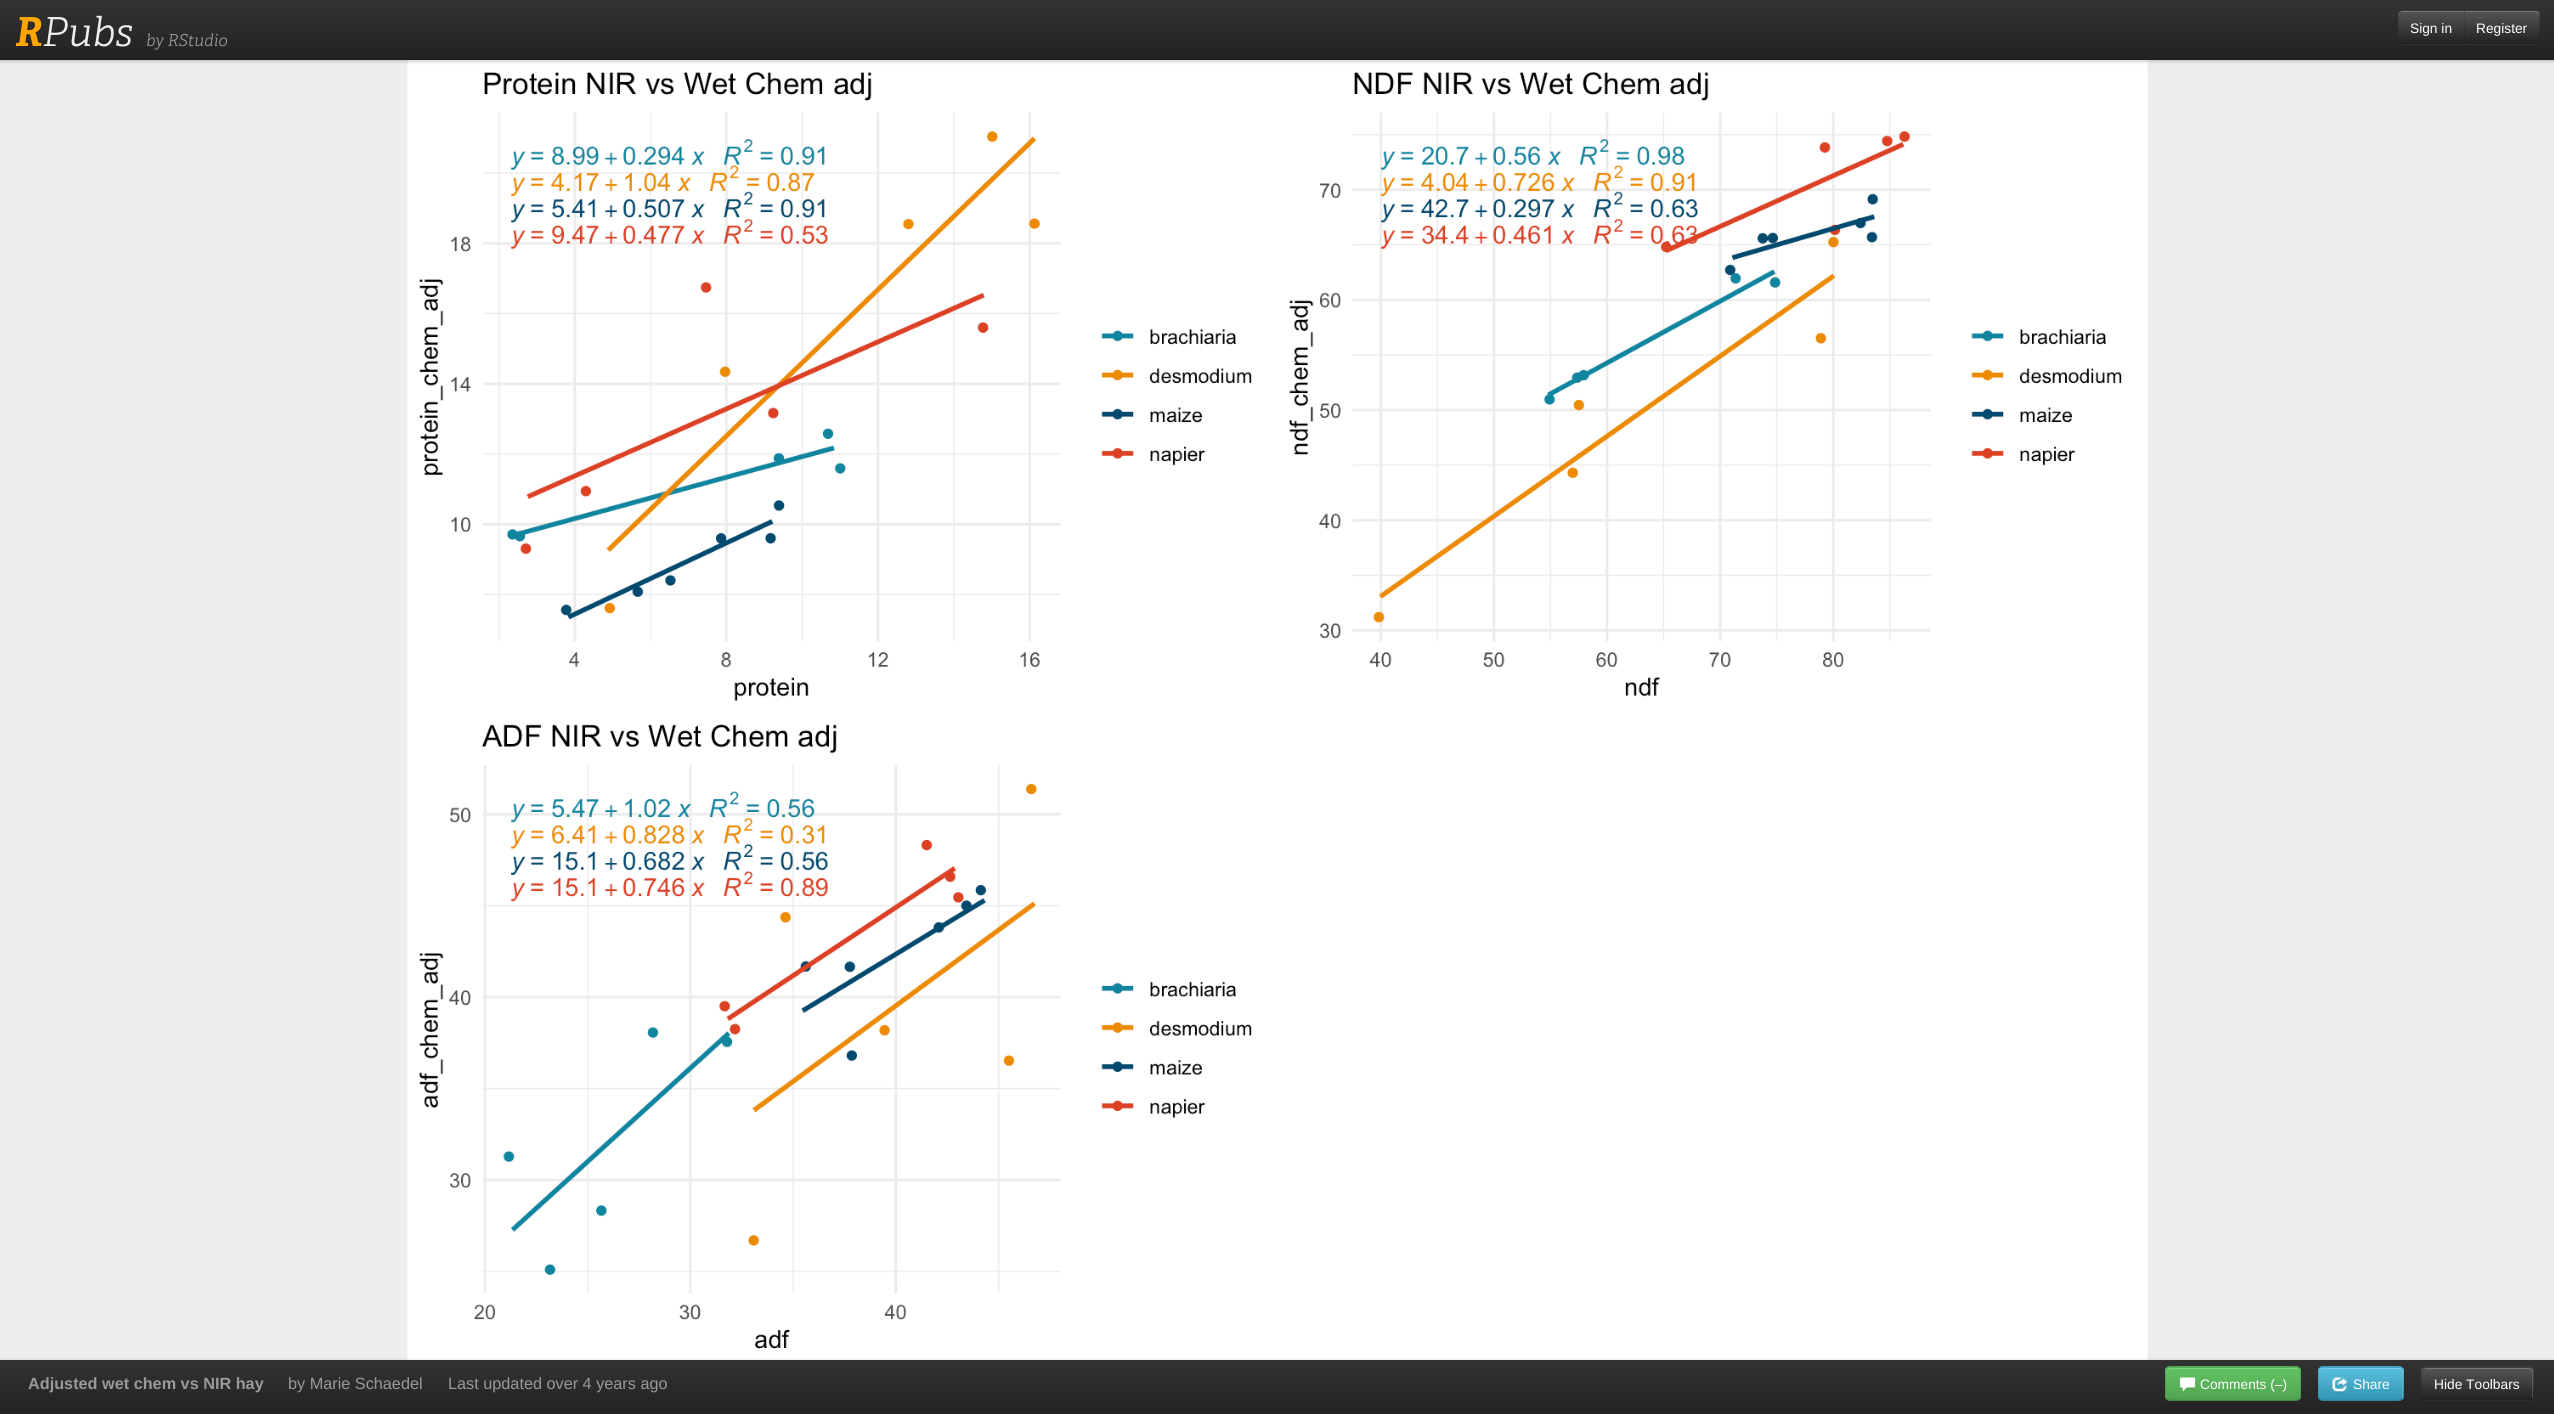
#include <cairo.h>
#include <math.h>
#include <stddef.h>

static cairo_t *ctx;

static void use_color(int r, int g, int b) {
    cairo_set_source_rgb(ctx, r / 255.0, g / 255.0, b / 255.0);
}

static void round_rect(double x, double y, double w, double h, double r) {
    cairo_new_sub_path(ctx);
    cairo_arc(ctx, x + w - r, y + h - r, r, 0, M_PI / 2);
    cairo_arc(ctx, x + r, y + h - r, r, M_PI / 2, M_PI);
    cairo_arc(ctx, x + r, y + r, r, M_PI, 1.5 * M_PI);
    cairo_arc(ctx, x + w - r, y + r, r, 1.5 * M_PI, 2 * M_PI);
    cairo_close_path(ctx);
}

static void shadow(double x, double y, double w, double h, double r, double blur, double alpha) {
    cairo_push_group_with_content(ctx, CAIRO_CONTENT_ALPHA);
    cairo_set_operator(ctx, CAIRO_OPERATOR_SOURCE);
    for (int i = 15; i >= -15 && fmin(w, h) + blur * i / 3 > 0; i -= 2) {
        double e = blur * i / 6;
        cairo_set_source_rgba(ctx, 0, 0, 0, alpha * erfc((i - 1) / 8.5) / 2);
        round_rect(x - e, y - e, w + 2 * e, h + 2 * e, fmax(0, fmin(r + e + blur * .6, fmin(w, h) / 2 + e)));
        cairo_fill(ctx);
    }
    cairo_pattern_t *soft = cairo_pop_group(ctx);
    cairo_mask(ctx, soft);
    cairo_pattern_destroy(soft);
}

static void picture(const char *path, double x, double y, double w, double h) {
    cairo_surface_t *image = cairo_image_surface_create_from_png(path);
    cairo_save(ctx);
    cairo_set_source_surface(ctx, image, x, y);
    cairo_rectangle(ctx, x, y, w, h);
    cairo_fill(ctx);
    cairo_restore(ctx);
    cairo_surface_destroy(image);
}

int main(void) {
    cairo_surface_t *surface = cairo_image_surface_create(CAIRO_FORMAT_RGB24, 2554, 1414);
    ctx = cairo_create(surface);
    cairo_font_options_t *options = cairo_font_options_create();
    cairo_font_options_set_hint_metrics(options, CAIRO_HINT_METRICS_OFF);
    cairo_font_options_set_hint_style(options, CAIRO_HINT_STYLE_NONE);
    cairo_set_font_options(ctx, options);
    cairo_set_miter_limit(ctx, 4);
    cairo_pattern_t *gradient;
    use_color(238, 238, 238);
    cairo_paint(ctx);
    picture("img1.png", 407, 60, 1741, 1300);
    use_color(0, 0, 0);
    shadow(0, 1, 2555, 60, 0, 2, 0.25);
    gradient = cairo_pattern_create_linear(1278, 0, 1278, 60);
    cairo_pattern_add_color_stop_rgba(gradient, 0, 0.2, 0.2, 0.2, 1);
    cairo_pattern_add_color_stop_rgba(gradient, 1, 0.133, 0.133, 0.133, 1);
    cairo_set_source(ctx, gradient);
    cairo_pattern_destroy(gradient);
    cairo_rectangle(ctx, 0, 0, 2554, 59);
    cairo_fill(ctx);
    use_color(31, 31, 31);
    cairo_rectangle(ctx, 0, 59, 2554, 1);
    cairo_fill(ctx);
    cairo_select_font_face(ctx, "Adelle", CAIRO_FONT_SLANT_ITALIC, CAIRO_FONT_WEIGHT_BOLD);
    cairo_set_font_size(ctx, 40);
    use_color(255, 165, 0);
    cairo_move_to(ctx, 15, 46);
    cairo_show_text(ctx, "R");
    cairo_select_font_face(ctx, "Adelle Light", CAIRO_FONT_SLANT_ITALIC, CAIRO_FONT_WEIGHT_NORMAL);
    use_color(238, 238, 238);
    cairo_move_to(ctx, 42, 46);
    cairo_show_text(ctx, "Pubs");
    cairo_set_font_size(ctx, 16.5);
    use_color(153, 153, 153);
    cairo_move_to(ctx, 146, 46);
    cairo_show_text(ctx, "by RStudio");
    use_color(65, 65, 65);
    cairo_new_path(ctx);
    cairo_move_to(ctx, 2403, 10);
    cairo_line_to(ctx, 2465, 10);
    cairo_line_to(ctx, 2465, 45);
    cairo_line_to(ctx, 2403, 45);
    cairo_curve_to(ctx, 2400, 45, 2398, 43, 2398, 40);
    cairo_line_to(ctx, 2398, 15);
    cairo_curve_to(ctx, 2398, 12, 2400, 10, 2403, 10);
    cairo_close_path(ctx);
    cairo_fill(ctx);
    cairo_save(ctx);
    cairo_new_path(ctx);
    cairo_move_to(ctx, 2403, 10);
    cairo_line_to(ctx, 2465, 10);
    cairo_line_to(ctx, 2465, 45);
    cairo_line_to(ctx, 2403, 45);
    cairo_curve_to(ctx, 2400, 45, 2398, 43, 2398, 40);
    cairo_line_to(ctx, 2398, 15);
    cairo_curve_to(ctx, 2398, 12, 2400, 10, 2403, 10);
    cairo_close_path(ctx);
    cairo_clip(ctx);
    gradient = cairo_pattern_create_linear(2431, 11, 2431, 44);
    cairo_pattern_add_color_stop_rgba(gradient, 0, 0.333, 0.333, 0.333, 1);
    cairo_pattern_add_color_stop_rgba(gradient, 1, 0.133, 0.133, 0.133, 1);
    cairo_set_source(ctx, gradient);
    cairo_pattern_destroy(gradient);
    cairo_rectangle(ctx, 2398, 11, 66, 33);
    cairo_fill(ctx);
    cairo_restore(ctx);
    use_color(118, 118, 118);
    cairo_new_path(ctx);
    cairo_move_to(ctx, 2402, 12);
    cairo_line_to(ctx, 2464, 12);
    cairo_line_to(ctx, 2464, 11);
    cairo_line_to(ctx, 2403, 11);
    cairo_curve_to(ctx, 2401, 11, 2399, 13, 2399, 15);
    cairo_line_to(ctx, 2399, 16);
    cairo_curve_to(ctx, 2399, 14, 2400, 12, 2402, 12);
    cairo_close_path(ctx);
    cairo_fill(ctx);
    cairo_set_source_rgba(ctx, 0, 0, 0, 0.1);
    cairo_new_path(ctx);
    cairo_move_to(ctx, 2402, 10);
    cairo_curve_to(ctx, 2401, 10, 2400, 11, 2399, 12);
    cairo_line_to(ctx, 2400, 12);
    cairo_line_to(ctx, 2402, 11);
    cairo_line_to(ctx, 2464, 11);
    cairo_line_to(ctx, 2465, 10);
    cairo_close_path(ctx);
    cairo_fill(ctx);
    cairo_set_source_rgba(ctx, 0, 0, 0, 0.25);
    cairo_new_path(ctx);
    cairo_move_to(ctx, 2465, 45);
    cairo_line_to(ctx, 2464, 44);
    cairo_line_to(ctx, 2402, 44);
    cairo_line_to(ctx, 2400, 43);
    cairo_line_to(ctx, 2399, 43);
    cairo_curve_to(ctx, 2400, 44, 2401, 45, 2402, 45);
    cairo_close_path(ctx);
    cairo_fill(ctx);
    cairo_set_source_rgba(ctx, 0, 0, 0, 0.1);
    cairo_new_path(ctx);
    cairo_move_to(ctx, 2399, 11.5);
    cairo_curve_to(ctx, 2398.5, 12.5, 2398, 13.5, 2398, 15);
    cairo_line_to(ctx, 2398, 40);
    cairo_curve_to(ctx, 2398, 41.5, 2398.5, 42.5, 2399, 43.5);
    cairo_line_to(ctx, 2400, 43);
    cairo_curve_to(ctx, 2399, 42, 2399, 41, 2399, 40);
    cairo_line_to(ctx, 2399, 15);
    cairo_curve_to(ctx, 2399, 14, 2399, 13, 2400, 12);
    cairo_close_path(ctx);
    cairo_fill(ctx);
    cairo_select_font_face(ctx, "Liberation Sans", CAIRO_FONT_SLANT_NORMAL, CAIRO_FONT_WEIGHT_NORMAL);
    cairo_set_font_size(ctx, 13.75);
    use_color(255, 255, 255);
    cairo_move_to(ctx, 2410, 33);
    cairo_show_text(ctx, "Sign in");
    use_color(65, 65, 65);
    cairo_new_path(ctx);
    cairo_move_to(ctx, 2464, 10);
    cairo_line_to(ctx, 2535, 10);
    cairo_curve_to(ctx, 2538, 10, 2540, 12, 2540, 15);
    cairo_line_to(ctx, 2540, 40);
    cairo_curve_to(ctx, 2540, 43, 2538, 45, 2535, 45);
    cairo_line_to(ctx, 2464, 45);
    cairo_close_path(ctx);
    cairo_fill(ctx);
    cairo_save(ctx);
    cairo_new_path(ctx);
    cairo_move_to(ctx, 2464, 10);
    cairo_line_to(ctx, 2535, 10);
    cairo_curve_to(ctx, 2538, 10, 2540, 12, 2540, 15);
    cairo_line_to(ctx, 2540, 40);
    cairo_curve_to(ctx, 2540, 43, 2538, 45, 2535, 45);
    cairo_line_to(ctx, 2464, 45);
    cairo_close_path(ctx);
    cairo_clip(ctx);
    gradient = cairo_pattern_create_linear(2502, 11, 2502, 44);
    cairo_pattern_add_color_stop_rgba(gradient, 0, 0.333, 0.333, 0.333, 1);
    cairo_pattern_add_color_stop_rgba(gradient, 1, 0.133, 0.133, 0.133, 1);
    cairo_set_source(ctx, gradient);
    cairo_pattern_destroy(gradient);
    cairo_rectangle(ctx, 2464, 11, 76, 33);
    cairo_fill(ctx);
    cairo_restore(ctx);
    cairo_set_source_rgba(ctx, 1, 1, 1, 0.2);
    cairo_new_path(ctx);
    cairo_move_to(ctx, 2465, 12);
    cairo_line_to(ctx, 2535, 12);
    cairo_curve_to(ctx, 2537, 12, 2539, 14, 2539, 16);
    cairo_line_to(ctx, 2539, 15);
    cairo_curve_to(ctx, 2539, 13, 2537, 11, 2535, 11);
    cairo_line_to(ctx, 2465, 11);
    cairo_close_path(ctx);
    cairo_fill(ctx);
    cairo_set_source_rgba(ctx, 0, 0, 0, 0.1);
    cairo_new_path(ctx);
    cairo_move_to(ctx, 2464, 10);
    cairo_line_to(ctx, 2465, 11);
    cairo_line_to(ctx, 2535, 11);
    cairo_line_to(ctx, 2538, 12);
    cairo_line_to(ctx, 2539, 11);
    cairo_curve_to(ctx, 2538, 10, 2536, 10, 2535, 10);
    cairo_close_path(ctx);
    cairo_fill(ctx);
    cairo_new_path(ctx);
    cairo_move_to(ctx, 2540, 40);
    cairo_line_to(ctx, 2540, 15);
    cairo_curve_to(ctx, 2540, 13.5, 2539.5, 12, 2538.5, 11.5);
    cairo_line_to(ctx, 2538, 12);
    cairo_curve_to(ctx, 2538.5, 13, 2539, 14, 2539, 15);
    cairo_line_to(ctx, 2539, 40);
    cairo_curve_to(ctx, 2539, 41, 2538.5, 42, 2538, 43);
    cairo_line_to(ctx, 2538.5, 43.5);
    cairo_curve_to(ctx, 2539.5, 43, 2540, 41.5, 2540, 40);
    cairo_close_path(ctx);
    cairo_fill(ctx);
    cairo_set_source_rgba(ctx, 0, 0, 0, 0.25);
    cairo_new_path(ctx);
    cairo_move_to(ctx, 2464, 45);
    cairo_line_to(ctx, 2536, 45);
    cairo_line_to(ctx, 2539, 44);
    cairo_line_to(ctx, 2538, 43);
    cairo_line_to(ctx, 2535, 44);
    cairo_line_to(ctx, 2465, 44);
    cairo_close_path(ctx);
    cairo_fill(ctx);
    cairo_set_source_rgba(ctx, 0, 0, 0, 0.1);
    cairo_new_path(ctx);
    cairo_move_to(ctx, 2464, 10);
    cairo_line_to(ctx, 2464, 45);
    cairo_line_to(ctx, 2465, 44);
    cairo_line_to(ctx, 2465, 11);
    cairo_close_path(ctx);
    cairo_fill(ctx);
    use_color(255, 255, 255);
    cairo_move_to(ctx, 2476, 33);
    cairo_show_text(ctx, "Register");
    use_color(0, 0, 0);
    shadow(0, 1361, 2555, 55, 0, 2, 0.25);
    gradient = cairo_pattern_create_linear(1278, 1360, 1278, 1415);
    cairo_pattern_add_color_stop_rgba(gradient, 0, 0.2, 0.2, 0.2, 1);
    cairo_pattern_add_color_stop_rgba(gradient, 1, 0.133, 0.133, 0.133, 1);
    cairo_set_source(ctx, gradient);
    cairo_pattern_destroy(gradient);
    cairo_rectangle(ctx, 0, 1360, 2554, 54);
    cairo_fill(ctx);
    cairo_select_font_face(ctx, "Liberation Sans", CAIRO_FONT_SLANT_NORMAL, CAIRO_FONT_WEIGHT_BOLD);
    cairo_set_font_size(ctx, 16.25);
    use_color(153, 153, 153);
    cairo_move_to(ctx, 28, 1389);
    cairo_show_text(ctx, "Adjusted wet chem vs NIR hay");
    cairo_select_font_face(ctx, "Liberation Sans", CAIRO_FONT_SLANT_NORMAL, CAIRO_FONT_WEIGHT_NORMAL);
    cairo_move_to(ctx, 288, 1389);
    cairo_show_text(ctx, "by Marie Schaedel");
    cairo_move_to(ctx, 448, 1389);
    cairo_show_text(ctx, "Last updated over 4 years ago");
    use_color(91, 183, 91);
    round_rect(2165, 1366, 136, 35, 5);
    cairo_fill(ctx);
    cairo_save(ctx);
    round_rect(2165, 1366, 136, 35, 5);
    cairo_clip(ctx);
    gradient = cairo_pattern_create_linear(2233, 1368, 2233, 1400);
    cairo_pattern_add_color_stop_rgba(gradient, 0, 0.384, 0.769, 0.384, 1);
    cairo_pattern_add_color_stop_rgba(gradient, 1, 0.318, 0.639, 0.318, 1);
    cairo_set_source(ctx, gradient);
    cairo_pattern_destroy(gradient);
    cairo_rectangle(ctx, 2165, 1368, 136, 32);
    cairo_fill(ctx);
    cairo_restore(ctx);
    use_color(129, 207, 129);
    cairo_new_path(ctx);
    cairo_move_to(ctx, 2170, 1369);
    cairo_line_to(ctx, 2297, 1369);
    cairo_curve_to(ctx, 2299, 1369, 2300, 1370, 2300, 1372);
    cairo_curve_to(ctx, 2300, 1370, 2298, 1368, 2296, 1368);
    cairo_line_to(ctx, 2170, 1368);
    cairo_curve_to(ctx, 2168, 1368, 2166, 1370, 2166, 1372);
    cairo_curve_to(ctx, 2166, 1370, 2168, 1369, 2170, 1369);
    cairo_close_path(ctx);
    cairo_fill(ctx);
    cairo_new_path(ctx);
    cairo_move_to(ctx, 2299.5, 1399.5);
    cairo_line_to(ctx, 2296.5, 1400.5);
    cairo_line_to(ctx, 2191, 1400.5);
    cairo_line_to(ctx, 2170, 1400.5);
    cairo_line_to(ctx, 2167, 1399.5);
    cairo_set_source_rgba(ctx, 0, 0, 0, 0.25);
    cairo_set_line_width(ctx, 1.2);
    cairo_stroke(ctx);
    cairo_new_path(ctx);
    cairo_move_to(ctx, 2167, 1399.5);
    cairo_curve_to(ctx, 2164, 1396.5, 2165.5, 1391, 2165.5, 1388);
    cairo_curve_to(ctx, 2165.5, 1362, 2162, 1367, 2191, 1367);
    cairo_line_to(ctx, 2275, 1367);
    cairo_curve_to(ctx, 2304, 1367, 2300.5, 1362, 2300.5, 1388);
    cairo_curve_to(ctx, 2300.5, 1391, 2302, 1396.5, 2299.5, 1399.5);
    cairo_set_source_rgba(ctx, 0, 0, 0, 0.1);
    cairo_stroke(ctx);
    picture("img2.png", 2179, 1377, 17, 16);
    cairo_set_font_size(ctx, 13.75);
    use_color(255, 255, 255);
    cairo_move_to(ctx, 2200, 1389);
    cairo_show_text(ctx, "Comments (–)");
    use_color(73, 175, 205);
    round_rect(2318, 1366, 86, 35, 5);
    cairo_fill(ctx);
    cairo_save(ctx);
    round_rect(2318, 1366, 86, 35, 5);
    cairo_clip(ctx);
    gradient = cairo_pattern_create_linear(2361, 1368, 2361, 1400);
    cairo_pattern_add_color_stop_rgba(gradient, 0, 0.357, 0.753, 0.871, 1);
    cairo_pattern_add_color_stop_rgba(gradient, 1, 0.184, 0.588, 0.706, 1);
    cairo_set_source(ctx, gradient);
    cairo_pattern_destroy(gradient);
    cairo_rectangle(ctx, 2318, 1368, 86, 32);
    cairo_fill(ctx);
    cairo_restore(ctx);
    cairo_set_source_rgba(ctx, 1, 1, 1, 0.2);
    cairo_new_path(ctx);
    cairo_move_to(ctx, 2322, 1369);
    cairo_line_to(ctx, 2399, 1369);
    cairo_curve_to(ctx, 2403, 1369, 2402, 1374, 2402, 1376);
    cairo_line_to(ctx, 2402, 1399);
    cairo_curve_to(ctx, 2403, 1398, 2403, 1397, 2403, 1396);
    cairo_line_to(ctx, 2403, 1372);
    cairo_curve_to(ctx, 2403, 1370, 2401, 1368, 2399, 1368);
    cairo_line_to(ctx, 2323, 1368);
    cairo_curve_to(ctx, 2322, 1368, 2320, 1369, 2320, 1370);
    cairo_close_path(ctx);
    cairo_fill(ctx);
    cairo_new_path(ctx);
    cairo_move_to(ctx, 2402, 1399.5);
    cairo_line_to(ctx, 2399, 1400.5);
    cairo_line_to(ctx, 2322, 1400.5);
    cairo_line_to(ctx, 2319.5, 1399.5);
    cairo_set_source_rgba(ctx, 0, 0, 0, 0.25);
    cairo_stroke(ctx);
    cairo_new_path(ctx);
    cairo_move_to(ctx, 2319.5, 1399.5);
    cairo_curve_to(ctx, 2317, 1397, 2318, 1387, 2318, 1384);
    cairo_curve_to(ctx, 2318, 1364.5, 2315.5, 1367, 2335, 1367);
    cairo_line_to(ctx, 2386, 1367);
    cairo_curve_to(ctx, 2405.5, 1367, 2403, 1364.5, 2403, 1384);
    cairo_curve_to(ctx, 2403, 1387, 2404.5, 1397, 2402, 1399.5);
    cairo_set_source_rgba(ctx, 0, 0, 0, 0.1);
    cairo_stroke(ctx);
    picture("img3.png", 2332, 1377, 16, 16);
    use_color(255, 255, 255);
    cairo_move_to(ctx, 2353, 1389);
    cairo_show_text(ctx, "Share");
    use_color(65, 65, 65);
    round_rect(2421, 1366, 113, 35, 5);
    cairo_fill(ctx);
    cairo_save(ctx);
    round_rect(2421, 1366, 113, 35, 5);
    cairo_clip(ctx);
    gradient = cairo_pattern_create_linear(2478, 1368, 2478, 1400);
    cairo_pattern_add_color_stop_rgba(gradient, 0, 0.333, 0.333, 0.333, 1);
    cairo_pattern_add_color_stop_rgba(gradient, 1, 0.133, 0.133, 0.133, 1);
    cairo_set_source(ctx, gradient);
    cairo_pattern_destroy(gradient);
    cairo_rectangle(ctx, 2421, 1368, 113, 32);
    cairo_fill(ctx);
    cairo_restore(ctx);
    cairo_set_source_rgba(ctx, 1, 1, 1, 0.2);
    cairo_new_path(ctx);
    cairo_move_to(ctx, 2426, 1369);
    cairo_line_to(ctx, 2529, 1369);
    cairo_curve_to(ctx, 2534, 1369, 2532, 1378, 2532, 1381);
    cairo_line_to(ctx, 2532, 1399);
    cairo_curve_to(ctx, 2533, 1398, 2533, 1397, 2533, 1396);
    cairo_line_to(ctx, 2533, 1372);
    cairo_curve_to(ctx, 2533, 1370, 2531, 1368, 2529, 1368);
    cairo_line_to(ctx, 2427, 1368);
    cairo_curve_to(ctx, 2426, 1368, 2425, 1369, 2424, 1369);
    cairo_close_path(ctx);
    cairo_fill(ctx);
    cairo_new_path(ctx);
    cairo_move_to(ctx, 2532, 1399.5);
    cairo_line_to(ctx, 2529, 1400.5);
    cairo_line_to(ctx, 2426, 1400.5);
    cairo_line_to(ctx, 2423, 1399.5);
    cairo_set_source_rgba(ctx, 0, 0, 0, 0.25);
    cairo_stroke(ctx);
    cairo_new_path(ctx);
    cairo_move_to(ctx, 2423, 1399.5);
    cairo_curve_to(ctx, 2420.5, 1396.5, 2422, 1391, 2422, 1388);
    cairo_curve_to(ctx, 2422, 1363.5, 2418, 1367, 2443.5, 1367);
    cairo_line_to(ctx, 2511.5, 1367);
    cairo_curve_to(ctx, 2537, 1367, 2533, 1363.5, 2533, 1388);
    cairo_curve_to(ctx, 2533, 1391, 2534.5, 1396.5, 2532, 1399.5);
    cairo_set_source_rgba(ctx, 0, 0, 0, 0.1);
    cairo_stroke(ctx);
    use_color(255, 255, 255);
    cairo_move_to(ctx, 2434, 1389);
    cairo_show_text(ctx, "Hide Toolbars");
    cairo_surface_write_to_png(surface, "result.png");
    cairo_font_options_destroy(options);
    cairo_destroy(ctx);
    cairo_surface_destroy(surface);
    return 0;
}
